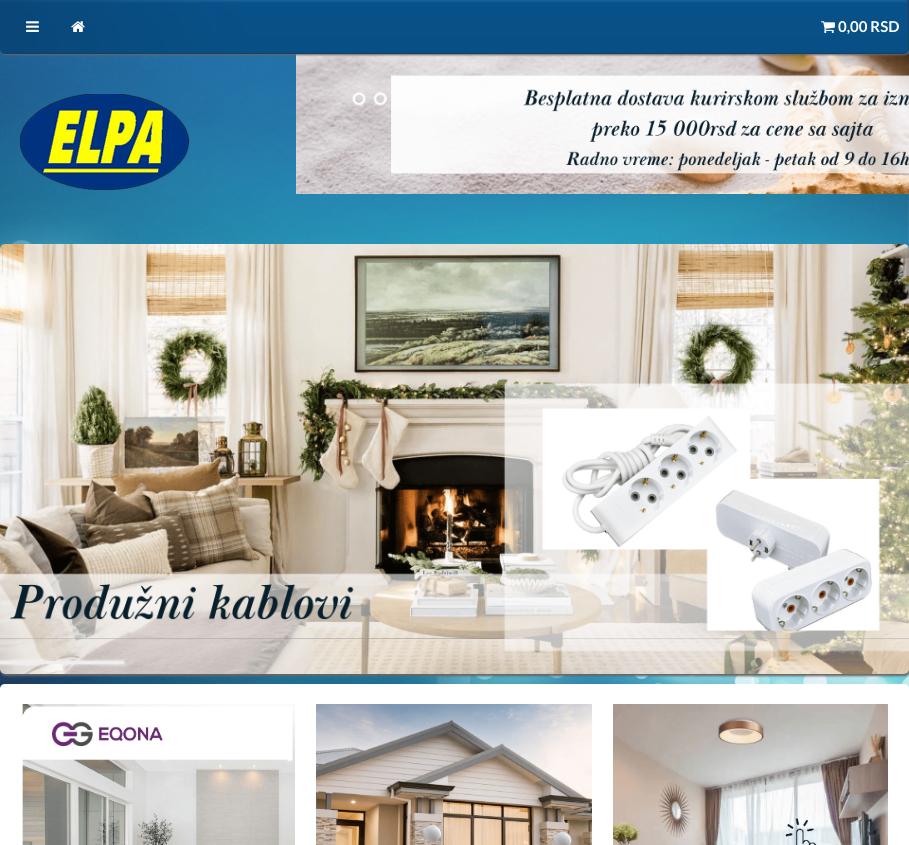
#include <cairo.h>
#include <math.h>
#include <stddef.h>

static cairo_t *ctx;

static void use_color(int r, int g, int b) {
    cairo_set_source_rgb(ctx, r / 255.0, g / 255.0, b / 255.0);
}

static void round_rect(double x, double y, double w, double h, double r) {
    cairo_new_sub_path(ctx);
    cairo_arc(ctx, x + w - r, y + h - r, r, 0, M_PI / 2);
    cairo_arc(ctx, x + r, y + h - r, r, M_PI / 2, M_PI);
    cairo_arc(ctx, x + r, y + r, r, M_PI, 1.5 * M_PI);
    cairo_arc(ctx, x + w - r, y + r, r, 1.5 * M_PI, 2 * M_PI);
    cairo_close_path(ctx);
}

static void shadow(double x, double y, double w, double h, double r, double blur, double alpha) {
    cairo_push_group_with_content(ctx, CAIRO_CONTENT_ALPHA);
    cairo_set_operator(ctx, CAIRO_OPERATOR_SOURCE);
    for (int i = 15; i >= -15 && fmin(w, h) + blur * i / 3 > 0; i -= 2) {
        double e = blur * i / 6;
        cairo_set_source_rgba(ctx, 0, 0, 0, alpha * erfc((i - 1) / 8.5) / 2);
        round_rect(x - e, y - e, w + 2 * e, h + 2 * e, fmax(0, fmin(r + e + blur * .6, fmin(w, h) / 2 + e)));
        cairo_fill(ctx);
    }
    cairo_pattern_t *soft = cairo_pop_group(ctx);
    cairo_mask(ctx, soft);
    cairo_pattern_destroy(soft);
}

static void picture(const char *path, double x, double y, double w, double h) {
    cairo_surface_t *image = cairo_image_surface_create_from_png(path);
    cairo_save(ctx);
    cairo_set_source_surface(ctx, image, x, y);
    cairo_rectangle(ctx, x, y, w, h);
    cairo_fill(ctx);
    cairo_restore(ctx);
    cairo_surface_destroy(image);
}

int main(void) {
    cairo_surface_t *surface = cairo_image_surface_create(CAIRO_FORMAT_RGB24, 909, 845);
    ctx = cairo_create(surface);
    cairo_font_options_t *options = cairo_font_options_create();
    cairo_font_options_set_hint_metrics(options, CAIRO_HINT_METRICS_OFF);
    cairo_font_options_set_hint_style(options, CAIRO_HINT_STYLE_NONE);
    cairo_set_font_options(ctx, options);
    cairo_set_miter_limit(ctx, 4);
    use_color(255, 255, 255);
    cairo_paint(ctx);
    picture("img1.png", 0, 49, 909, 640);
    picture("img7.png", 296, 54, 613, 140);
    use_color(102, 102, 102);
    shadow(1, 1, 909, 54, 5, 1, 1);
    picture("img2.png", 0, 0, 909, 54);
    picture("img3.png", 26, 21, 13, 11);
    picture("img4.png", 71, 21, 14, 11);
    picture("img5.png", 821, 21, 14, 13);
    cairo_select_font_face(ctx, "Lato", CAIRO_FONT_SLANT_NORMAL, CAIRO_FONT_WEIGHT_BOLD);
    cairo_set_font_size(ctx, 15);
    use_color(255, 255, 255);
    cairo_move_to(ctx, 838, 32);
    cairo_show_text(ctx, "0,00 RSD");
    picture("img6.png", 20, 94, 169, 96);
    use_color(102, 102, 102);
    shadow(1, 246, 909, 430, 5, 1, 1);
    picture("img8.png", 0, 244, 909, 430);
    use_color(255, 255, 255);
    shadow(0, 661, 124, 3, 1.5, 1.5, 1);
    use_color(238, 238, 238);
    round_rect(0, 661, 124, 3, 1.5);
    cairo_fill(ctx);
    use_color(80, 80, 80);
    shadow(1, 687, 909, 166, 5, 1, 0.5);
    use_color(255, 255, 255);
    cairo_new_path(ctx);
    cairo_move_to(ctx, 5, 684);
    cairo_line_to(ctx, 904, 684);
    cairo_curve_to(ctx, 907, 684, 909, 686, 909, 689);
    cairo_line_to(ctx, 909, 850);
    cairo_line_to(ctx, 0, 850);
    cairo_line_to(ctx, 0, 689);
    cairo_curve_to(ctx, 0, 686, 2, 684, 5, 684);
    cairo_close_path(ctx);
    cairo_fill(ctx);
    picture("img9.png", 22, 704, 273, 141);
    picture("img10.png", 316, 704, 276, 141);
    picture("img11.png", 613, 704, 275, 141);
    cairo_surface_write_to_png(surface, "result.png");
    cairo_font_options_destroy(options);
    cairo_destroy(ctx);
    cairo_surface_destroy(surface);
    return 0;
}
